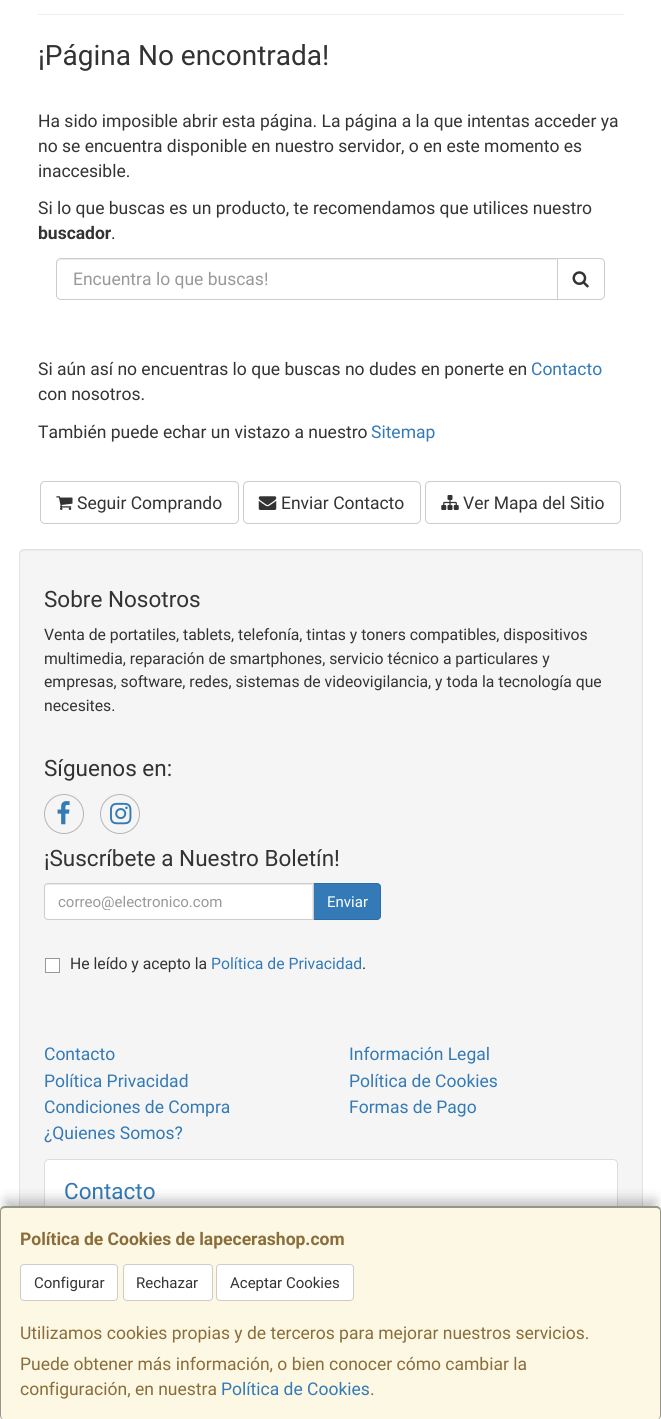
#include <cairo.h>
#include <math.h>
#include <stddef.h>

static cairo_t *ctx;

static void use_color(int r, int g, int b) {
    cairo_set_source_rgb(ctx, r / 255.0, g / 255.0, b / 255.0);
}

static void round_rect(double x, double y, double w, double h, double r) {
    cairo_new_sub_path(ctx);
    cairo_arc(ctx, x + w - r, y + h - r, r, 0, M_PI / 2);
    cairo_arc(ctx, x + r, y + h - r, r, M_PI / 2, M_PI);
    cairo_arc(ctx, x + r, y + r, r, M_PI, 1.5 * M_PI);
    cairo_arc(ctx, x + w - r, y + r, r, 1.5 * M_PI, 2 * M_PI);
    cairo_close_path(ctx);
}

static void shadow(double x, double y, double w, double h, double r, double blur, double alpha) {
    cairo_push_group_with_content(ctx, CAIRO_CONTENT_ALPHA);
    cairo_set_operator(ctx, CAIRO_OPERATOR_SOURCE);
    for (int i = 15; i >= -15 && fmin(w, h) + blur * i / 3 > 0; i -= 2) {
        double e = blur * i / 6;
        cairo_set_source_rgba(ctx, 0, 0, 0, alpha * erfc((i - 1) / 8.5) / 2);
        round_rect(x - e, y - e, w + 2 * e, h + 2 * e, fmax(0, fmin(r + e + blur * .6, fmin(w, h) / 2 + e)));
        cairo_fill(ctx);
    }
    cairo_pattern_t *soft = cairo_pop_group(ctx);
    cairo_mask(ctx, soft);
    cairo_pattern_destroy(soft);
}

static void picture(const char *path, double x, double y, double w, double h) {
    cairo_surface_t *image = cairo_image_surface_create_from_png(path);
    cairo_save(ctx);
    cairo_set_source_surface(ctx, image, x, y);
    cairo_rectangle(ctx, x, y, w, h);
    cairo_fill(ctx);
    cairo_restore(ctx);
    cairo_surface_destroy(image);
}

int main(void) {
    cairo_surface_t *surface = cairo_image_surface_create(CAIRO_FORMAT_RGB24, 661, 1419);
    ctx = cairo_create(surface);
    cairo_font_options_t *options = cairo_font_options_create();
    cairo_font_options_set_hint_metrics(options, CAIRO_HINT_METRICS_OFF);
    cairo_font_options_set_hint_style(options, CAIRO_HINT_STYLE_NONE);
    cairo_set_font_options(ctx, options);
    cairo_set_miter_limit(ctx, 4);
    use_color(255, 255, 255);
    cairo_paint(ctx);
    use_color(238, 238, 238);
    cairo_rectangle(ctx, 38, 14, 586, 1);
    cairo_fill(ctx);
    cairo_select_font_face(ctx, "Roboto", CAIRO_FONT_SLANT_NORMAL, CAIRO_FONT_WEIGHT_NORMAL);
    cairo_set_font_size(ctx, 28);
    use_color(51, 51, 51);
    cairo_move_to(ctx, 38, 65);
    cairo_show_text(ctx, "¡Página No encontrada!");
    cairo_set_font_size(ctx, 17.5);
    cairo_move_to(ctx, 38, 127);
    cairo_show_text(ctx, "Ha sido imposible abrir esta página. La página a la que intentas acceder ya");
    cairo_move_to(ctx, 38, 152);
    cairo_show_text(ctx, "no se encuentra disponible en nuestro servidor, o en este momento es");
    cairo_move_to(ctx, 38, 177);
    cairo_show_text(ctx, "inaccesible.");
    cairo_move_to(ctx, 38, 214);
    cairo_show_text(ctx, "Si lo que buscas es un producto, te recomendamos que utilices nuestro");
    cairo_select_font_face(ctx, "Roboto", CAIRO_FONT_SLANT_NORMAL, CAIRO_FONT_WEIGHT_BOLD);
    cairo_move_to(ctx, 38, 239);
    cairo_show_text(ctx, "buscador");
    cairo_select_font_face(ctx, "Roboto", CAIRO_FONT_SLANT_NORMAL, CAIRO_FONT_WEIGHT_NORMAL);
    cairo_move_to(ctx, 111, 239);
    cairo_show_text(ctx, ".");
    cairo_new_path(ctx);
    cairo_move_to(ctx, 556.5, 258.5);
    cairo_line_to(ctx, 600, 258.5);
    cairo_curve_to(ctx, 602.5, 258.5, 604.5, 260.5, 604.5, 263);
    cairo_line_to(ctx, 604.5, 295);
    cairo_curve_to(ctx, 604.5, 297.5, 602.5, 299.5, 600, 299.5);
    cairo_line_to(ctx, 556.5, 299.5);
    cairo_close_path(ctx);
    use_color(204, 204, 204);
    cairo_set_line_width(ctx, 1);
    cairo_stroke(ctx);
    use_color(255, 255, 255);
    cairo_new_path(ctx);
    cairo_move_to(ctx, 61, 258);
    cairo_line_to(ctx, 558, 258);
    cairo_line_to(ctx, 558, 300);
    cairo_line_to(ctx, 61, 300);
    cairo_curve_to(ctx, 58, 300, 56, 298, 56, 295);
    cairo_line_to(ctx, 56, 263);
    cairo_curve_to(ctx, 56, 260, 58, 258, 61, 258);
    cairo_close_path(ctx);
    cairo_fill(ctx);
    use_color(236, 236, 236);
    cairo_new_path(ctx);
    cairo_move_to(ctx, 61, 260);
    cairo_line_to(ctx, 556, 260);
    cairo_line_to(ctx, 556, 259);
    cairo_line_to(ctx, 62, 259);
    cairo_curve_to(ctx, 59, 259, 58, 261, 58, 264);
    cairo_curve_to(ctx, 58, 262, 59, 260, 61, 260);
    cairo_close_path(ctx);
    cairo_fill(ctx);
    cairo_new_path(ctx);
    cairo_move_to(ctx, 61, 258.5);
    cairo_line_to(ctx, 557.5, 258.5);
    cairo_line_to(ctx, 557.5, 299.5);
    cairo_line_to(ctx, 61, 299.5);
    cairo_curve_to(ctx, 58.5, 299.5, 56.5, 297.5, 56.5, 295);
    cairo_line_to(ctx, 56.5, 263);
    cairo_curve_to(ctx, 56.5, 260.5, 58.5, 258.5, 61, 258.5);
    cairo_close_path(ctx);
    use_color(204, 204, 204);
    cairo_stroke(ctx);
    use_color(153, 153, 153);
    cairo_move_to(ctx, 73, 285);
    cairo_show_text(ctx, "Encuentra lo que buscas!");
    picture("img1.png", 572, 271, 17, 17);
    use_color(51, 51, 51);
    cairo_move_to(ctx, 38, 375);
    cairo_show_text(ctx, "Si aún así no encuentras lo que buscas no dudes en ponerte en");
    use_color(51, 122, 183);
    cairo_move_to(ctx, 531, 375);
    cairo_show_text(ctx, "Contacto");
    use_color(51, 51, 51);
    cairo_move_to(ctx, 38, 400);
    cairo_show_text(ctx, "con nosotros.");
    cairo_move_to(ctx, 38, 438);
    cairo_show_text(ctx, "También puede echar un vistazo a nuestro");
    use_color(51, 122, 183);
    cairo_move_to(ctx, 371, 438);
    cairo_show_text(ctx, "Sitemap");
    round_rect(40.5, 481.5, 198, 42, 4.5);
    use_color(204, 204, 204);
    cairo_stroke(ctx);
    picture("img2.png", 56, 496, 17, 14);
    use_color(51, 51, 51);
    cairo_move_to(ctx, 77, 509);
    cairo_show_text(ctx, "Seguir Comprando");
    round_rect(243.5, 481.5, 177, 42, 4.5);
    use_color(204, 204, 204);
    cairo_stroke(ctx);
    picture("img3.png", 258, 496, 19, 14);
    use_color(51, 51, 51);
    cairo_move_to(ctx, 281, 509);
    cairo_show_text(ctx, "Enviar Contacto");
    round_rect(425.5, 481.5, 195, 42, 4.5);
    use_color(204, 204, 204);
    cairo_stroke(ctx);
    picture("img4.png", 441, 495, 18, 15);
    use_color(51, 51, 51);
    cairo_move_to(ctx, 463, 509);
    cairo_show_text(ctx, "Ver Mapa del Sitio");
    use_color(245, 245, 245);
    round_rect(19, 549, 624, 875, 5);
    cairo_fill(ctx);
    use_color(233, 233, 233);
    cairo_new_path(ctx);
    cairo_move_to(ctx, 24, 551);
    cairo_line_to(ctx, 638, 551);
    cairo_curve_to(ctx, 640, 551, 641, 553, 641, 555);
    cairo_line_to(ctx, 641, 554);
    cairo_curve_to(ctx, 641, 552, 639, 550, 637, 550);
    cairo_line_to(ctx, 24, 550);
    cairo_curve_to(ctx, 22, 550, 20, 552, 20, 554);
    cairo_line_to(ctx, 20, 555);
    cairo_curve_to(ctx, 20, 553, 22, 551, 24, 551);
    cairo_close_path(ctx);
    cairo_fill(ctx);
    round_rect(19.5, 549.5, 623, 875, 4.5);
    use_color(227, 227, 227);
    cairo_stroke(ctx);
    cairo_set_font_size(ctx, 22.5);
    use_color(51, 51, 51);
    cairo_move_to(ctx, 44, 607);
    cairo_show_text(ctx, "Sobre Nosotros");
    cairo_set_font_size(ctx, 15.75);
    cairo_move_to(ctx, 44, 640);
    cairo_show_text(ctx, "Venta de portatiles, tablets, telefonía, tintas y toners compatibles, dispositivos");
    cairo_move_to(ctx, 44, 664);
    cairo_show_text(ctx, "multimedia, reparación de smartphones, servicio técnico a particulares y");
    cairo_move_to(ctx, 44, 687);
    cairo_show_text(ctx, "empresas, software, redes, sistemas de videovigilancia, y toda la tecnología que");
    cairo_move_to(ctx, 44, 711);
    cairo_show_text(ctx, "necesites.");
    cairo_set_font_size(ctx, 22.5);
    cairo_move_to(ctx, 44, 776);
    cairo_show_text(ctx, "Síguenos en:");
    cairo_new_path(ctx);
    cairo_arc(ctx, 64, 814, 19.5, 0, 2 * M_PI);
    use_color(181, 181, 181);
    cairo_stroke(ctx);
    picture("img5.png", 57, 801, 13, 24);
    cairo_arc(ctx, 120, 814, 19.5, 0, 2 * M_PI);
    cairo_stroke(ctx);
    picture("img6.png", 110, 802, 22, 23);
    use_color(51, 51, 51);
    cairo_move_to(ctx, 44, 866);
    cairo_show_text(ctx, "¡Suscríbete a Nuestro Boletín!");
    use_color(51, 122, 183);
    cairo_new_path(ctx);
    cairo_move_to(ctx, 313.5, 883.5);
    cairo_line_to(ctx, 377, 883.5);
    cairo_curve_to(ctx, 379, 883.5, 380.5, 885, 380.5, 887);
    cairo_line_to(ctx, 380.5, 916);
    cairo_curve_to(ctx, 380.5, 918, 379, 919.5, 377, 919.5);
    cairo_line_to(ctx, 313.5, 919.5);
    cairo_close_path(ctx);
    cairo_fill_preserve(ctx);
    use_color(46, 109, 164);
    cairo_stroke(ctx);
    use_color(255, 255, 255);
    cairo_new_path(ctx);
    cairo_move_to(ctx, 48, 883);
    cairo_line_to(ctx, 314, 883);
    cairo_line_to(ctx, 314, 920);
    cairo_line_to(ctx, 48, 920);
    cairo_curve_to(ctx, 46, 920, 44, 918, 44, 916);
    cairo_line_to(ctx, 44, 887);
    cairo_curve_to(ctx, 44, 885, 46, 883, 48, 883);
    cairo_close_path(ctx);
    cairo_fill(ctx);
    use_color(236, 236, 236);
    cairo_new_path(ctx);
    cairo_move_to(ctx, 48, 885);
    cairo_line_to(ctx, 312, 885);
    cairo_line_to(ctx, 312, 919);
    cairo_line_to(ctx, 313, 919);
    cairo_line_to(ctx, 313, 884);
    cairo_line_to(ctx, 48, 884);
    cairo_curve_to(ctx, 45, 884, 45, 886, 45, 888);
    cairo_curve_to(ctx, 45, 886, 46, 885, 48, 885);
    cairo_close_path(ctx);
    cairo_fill(ctx);
    cairo_new_path(ctx);
    cairo_move_to(ctx, 48, 883.5);
    cairo_line_to(ctx, 313.5, 883.5);
    cairo_line_to(ctx, 313.5, 919.5);
    cairo_line_to(ctx, 48, 919.5);
    cairo_curve_to(ctx, 46, 919.5, 44.5, 918, 44.5, 916);
    cairo_line_to(ctx, 44.5, 887);
    cairo_curve_to(ctx, 44.5, 885, 46, 883.5, 48, 883.5);
    cairo_close_path(ctx);
    use_color(204, 204, 204);
    cairo_stroke(ctx);
    cairo_save(ctx);
    cairo_rectangle(ctx, 58, 893, 242, 17);
    cairo_clip(ctx);
    cairo_set_font_size(ctx, 15);
    use_color(153, 153, 153);
    cairo_move_to(ctx, 58, 907);
    cairo_show_text(ctx, "correo@electronico.com");
    cairo_restore(ctx);
    cairo_set_font_size(ctx, 15);
    use_color(255, 255, 255);
    cairo_move_to(ctx, 327, 907);
    cairo_show_text(ctx, "Enviar");
    cairo_rectangle(ctx, 45.5, 958.5, 14, 14);
    cairo_fill_preserve(ctx);
    use_color(153, 153, 153);
    cairo_stroke(ctx);
    cairo_set_font_size(ctx, 15.75);
    use_color(51, 51, 51);
    cairo_move_to(ctx, 70, 969);
    cairo_show_text(ctx, "He leído y acepto la");
    use_color(51, 122, 183);
    cairo_move_to(ctx, 211, 969);
    cairo_show_text(ctx, "Política de Privacidad");
    use_color(51, 51, 51);
    cairo_move_to(ctx, 362, 969);
    cairo_show_text(ctx, ".");
    cairo_set_font_size(ctx, 17.5);
    use_color(51, 122, 183);
    cairo_move_to(ctx, 44, 1060);
    cairo_show_text(ctx, "Contacto");
    cairo_move_to(ctx, 349, 1060);
    cairo_show_text(ctx, "Información Legal");
    cairo_move_to(ctx, 44, 1087);
    cairo_show_text(ctx, "Política Privacidad");
    cairo_move_to(ctx, 349, 1087);
    cairo_show_text(ctx, "Política de Cookies");
    cairo_move_to(ctx, 44, 1113);
    cairo_show_text(ctx, "Condiciones de Compra");
    cairo_move_to(ctx, 349, 1113);
    cairo_show_text(ctx, "Formas de Pago");
    cairo_move_to(ctx, 44, 1139);
    cairo_show_text(ctx, "¿Quienes Somos?");
    use_color(255, 255, 255);
    round_rect(44.5, 1159.5, 573, 211, 4.5);
    cairo_fill_preserve(ctx);
    use_color(221, 221, 221);
    cairo_stroke(ctx);
    cairo_set_font_size(ctx, 22.5);
    use_color(51, 122, 183);
    cairo_move_to(ctx, 64, 1199);
    cairo_show_text(ctx, "Contacto");
    use_color(0, 0, 0);
    shadow(6, 1200, 649, 201, 0, 6, 0.25);
    use_color(252, 248, 227);
    round_rect(0, 1206, 661, 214, 5);
    cairo_fill(ctx);
    cairo_set_source_rgba(ctx, 0, 0, 0, 0.4);
    cairo_set_fill_rule(ctx, CAIRO_FILL_RULE_EVEN_ODD);
    cairo_new_path(ctx);
    cairo_move_to(ctx, 5, 1206);
    cairo_line_to(ctx, 656, 1206);
    cairo_curve_to(ctx, 659, 1206, 661, 1208, 661, 1211);
    cairo_line_to(ctx, 661, 1415);
    cairo_curve_to(ctx, 661, 1418, 659, 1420, 656, 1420);
    cairo_line_to(ctx, 5, 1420);
    cairo_curve_to(ctx, 2, 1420, 0, 1418, 0, 1415);
    cairo_line_to(ctx, 0, 1211);
    cairo_curve_to(ctx, 0, 1208, 2, 1206, 5, 1206);
    cairo_close_path(ctx);
    cairo_move_to(ctx, 5, 1208);
    cairo_line_to(ctx, 656, 1208);
    cairo_curve_to(ctx, 658, 1208, 660, 1209, 660, 1211);
    cairo_line_to(ctx, 660, 1415);
    cairo_curve_to(ctx, 660, 1418, 658, 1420, 656, 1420);
    cairo_line_to(ctx, 5, 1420);
    cairo_curve_to(ctx, 3, 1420, 1, 1418, 1, 1415);
    cairo_line_to(ctx, 1, 1211);
    cairo_curve_to(ctx, 1, 1209, 3, 1208, 5, 1208);
    cairo_close_path(ctx);
    cairo_fill(ctx);
    cairo_select_font_face(ctx, "Roboto", CAIRO_FONT_SLANT_NORMAL, CAIRO_FONT_WEIGHT_BOLD);
    cairo_set_font_size(ctx, 17.5);
    use_color(138, 109, 59);
    cairo_move_to(ctx, 20, 1245);
    cairo_show_text(ctx, "Política de Cookies de lapecerashop.com");
    use_color(255, 255, 255);
    round_rect(20.5, 1264.5, 97, 36, 3.5);
    cairo_fill_preserve(ctx);
    use_color(204, 204, 204);
    cairo_stroke(ctx);
    cairo_select_font_face(ctx, "Roboto", CAIRO_FONT_SLANT_NORMAL, CAIRO_FONT_WEIGHT_NORMAL);
    cairo_set_font_size(ctx, 15);
    use_color(51, 51, 51);
    cairo_move_to(ctx, 34, 1288);
    cairo_show_text(ctx, "Configurar");
    use_color(255, 255, 255);
    round_rect(123.5, 1264.5, 89, 36, 3.5);
    cairo_fill_preserve(ctx);
    use_color(204, 204, 204);
    cairo_stroke(ctx);
    use_color(51, 51, 51);
    cairo_move_to(ctx, 136, 1288);
    cairo_show_text(ctx, "Rechazar");
    use_color(255, 255, 255);
    round_rect(216.5, 1264.5, 137, 36, 3.5);
    cairo_fill_preserve(ctx);
    use_color(204, 204, 204);
    cairo_stroke(ctx);
    use_color(51, 51, 51);
    cairo_move_to(ctx, 230, 1288);
    cairo_show_text(ctx, "Aceptar Cookies");
    cairo_set_font_size(ctx, 17.5);
    use_color(138, 109, 59);
    cairo_move_to(ctx, 20, 1339);
    cairo_show_text(ctx, "Utilizamos cookies propias y de terceros para mejorar nuestros servicios.");
    cairo_move_to(ctx, 20, 1370);
    cairo_show_text(ctx, "Puede obtener más información, o bien conocer cómo cambiar la");
    cairo_move_to(ctx, 20, 1395);
    cairo_show_text(ctx, "configuración, en nuestra");
    use_color(51, 122, 183);
    cairo_move_to(ctx, 221, 1395);
    cairo_show_text(ctx, "Política de Cookies");
    use_color(138, 109, 59);
    cairo_move_to(ctx, 370, 1395);
    cairo_show_text(ctx, ".");
    cairo_surface_write_to_png(surface, "result.png");
    cairo_font_options_destroy(options);
    cairo_destroy(ctx);
    cairo_surface_destroy(surface);
    return 0;
}
